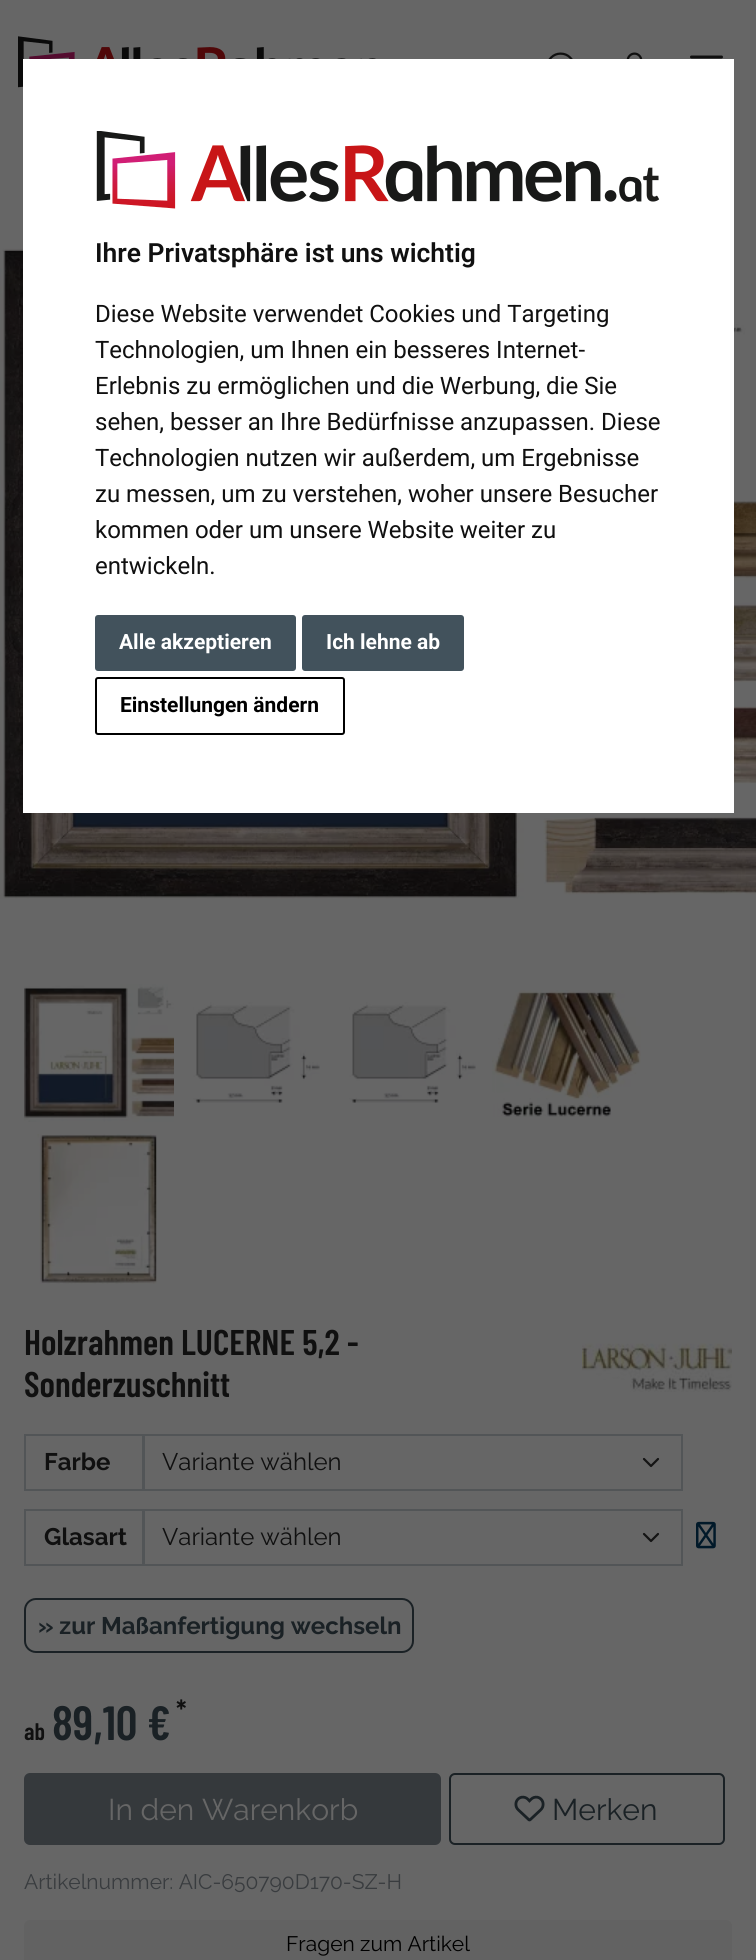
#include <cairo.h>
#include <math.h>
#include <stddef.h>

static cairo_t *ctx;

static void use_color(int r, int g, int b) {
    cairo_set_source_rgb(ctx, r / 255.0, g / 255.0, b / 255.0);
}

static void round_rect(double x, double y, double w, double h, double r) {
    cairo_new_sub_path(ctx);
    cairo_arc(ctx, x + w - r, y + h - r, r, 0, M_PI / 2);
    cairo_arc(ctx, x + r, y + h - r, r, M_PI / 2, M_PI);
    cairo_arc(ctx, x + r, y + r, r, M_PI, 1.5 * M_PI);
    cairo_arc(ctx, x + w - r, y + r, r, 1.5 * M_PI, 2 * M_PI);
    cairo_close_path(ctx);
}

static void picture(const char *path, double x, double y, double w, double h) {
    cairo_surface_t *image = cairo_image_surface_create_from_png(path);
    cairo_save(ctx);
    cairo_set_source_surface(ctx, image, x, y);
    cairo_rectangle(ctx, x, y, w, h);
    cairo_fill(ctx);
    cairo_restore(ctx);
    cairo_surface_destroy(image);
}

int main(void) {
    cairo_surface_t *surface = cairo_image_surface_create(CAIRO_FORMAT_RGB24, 756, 1960);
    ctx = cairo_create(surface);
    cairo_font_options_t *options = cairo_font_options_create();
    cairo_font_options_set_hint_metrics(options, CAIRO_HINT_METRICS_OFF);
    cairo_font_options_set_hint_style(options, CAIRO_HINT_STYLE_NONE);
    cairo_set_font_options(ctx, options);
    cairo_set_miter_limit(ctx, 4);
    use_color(102, 102, 102);
    cairo_paint(ctx);
    picture("img1.png", 18, 36, 358, 52);
    picture("img2.png", 548, 52, 25, 7);
    picture("img3.png", 626, 52, 17, 7);
    picture("img4.png", 690, 55, 33, 4);
    picture("img6.png", 0, 244, 756, 655);
    use_color(255, 255, 255);
    cairo_rectangle(ctx, 23, 59, 711, 754);
    cairo_fill(ctx);
    picture("img5.png", 96, 131, 564, 78);
    cairo_select_font_face(ctx, "Roboto SemiBold", CAIRO_FONT_SLANT_NORMAL, CAIRO_FONT_WEIGHT_NORMAL);
    cairo_set_font_size(ctx, 26.4);
    use_color(16, 16, 16);
    cairo_move_to(ctx, 95, 262);
    cairo_show_text(ctx, "Ihre Privatsphäre ist uns wichtig");
    cairo_select_font_face(ctx, "Roboto", CAIRO_FONT_SLANT_NORMAL, CAIRO_FONT_WEIGHT_NORMAL);
    cairo_set_font_size(ctx, 24);
    cairo_move_to(ctx, 95, 322);
    cairo_show_text(ctx, "Diese Website verwendet Cookies und Targeting");
    cairo_move_to(ctx, 95, 358);
    cairo_show_text(ctx, "Technologien, um Ihnen ein besseres Internet-");
    cairo_move_to(ctx, 95, 394);
    cairo_show_text(ctx, "Erlebnis zu ermöglichen und die Werbung, die Sie");
    cairo_move_to(ctx, 95, 430);
    cairo_show_text(ctx, "sehen, besser an Ihre Bedürfnisse anzupassen. Diese");
    cairo_move_to(ctx, 95, 466);
    cairo_show_text(ctx, "Technologien nutzen wir außerdem, um Ergebnisse");
    cairo_move_to(ctx, 95, 502);
    cairo_show_text(ctx, "zu messen, um zu verstehen, woher unsere Besucher");
    cairo_move_to(ctx, 95, 538);
    cairo_show_text(ctx, "kommen oder um unsere Website weiter zu");
    cairo_move_to(ctx, 95, 574);
    cairo_show_text(ctx, "entwickeln.");
    use_color(66, 82, 92);
    round_rect(95, 615, 201, 56, 3);
    cairo_fill(ctx);
    cairo_select_font_face(ctx, "Roboto", CAIRO_FONT_SLANT_NORMAL, CAIRO_FONT_WEIGHT_BOLD);
    cairo_set_font_size(ctx, 21);
    use_color(255, 255, 255);
    cairo_move_to(ctx, 119, 649);
    cairo_show_text(ctx, "Alle akzeptieren");
    use_color(66, 82, 92);
    round_rect(302, 615, 162, 56, 3);
    cairo_fill(ctx);
    use_color(255, 255, 255);
    cairo_move_to(ctx, 326, 649);
    cairo_show_text(ctx, "Ich lehne ab");
    round_rect(96, 678, 248, 56, 2);
    use_color(0, 0, 0);
    cairo_stroke(ctx);
    cairo_move_to(ctx, 120, 712);
    cairo_show_text(ctx, "Einstellungen ändern");
    picture("img7.png", 24, 984, 150, 138);
    picture("img8.png", 193, 1002, 127, 101);
    picture("img9.png", 349, 1002, 127, 101);
    picture("img10.png", 492, 990, 149, 127);
    picture("img11.png", 37, 1134, 120, 150);
    cairo_select_font_face(ctx, "Barlow Condensed SemiBold", CAIRO_FONT_SLANT_NORMAL, CAIRO_FONT_WEIGHT_NORMAL);
    cairo_set_font_size(ctx, 35.75);
    use_color(16, 16, 16);
    cairo_move_to(ctx, 24, 1355);
    cairo_show_text(ctx, "Holzrahmen LUCERNE 5,2 -");
    cairo_move_to(ctx, 24, 1397);
    cairo_show_text(ctx, "Sonderzuschnitt");
    picture("img12.png", 582, 1343, 150, 49);
    cairo_rectangle(ctx, 25, 1435, 118, 55);
    use_color(82, 85, 87);
    cairo_stroke(ctx);
    cairo_select_font_face(ctx, "Raleway", CAIRO_FONT_SLANT_NORMAL, CAIRO_FONT_WEIGHT_BOLD);
    cairo_set_font_size(ctx, 24);
    use_color(16, 16, 16);
    cairo_move_to(ctx, 44, 1470);
    cairo_show_text(ctx, "Farbe");
    cairo_new_path(ctx);
    cairo_move_to(ctx, 644, 1459);
    cairo_line_to(ctx, 651, 1466);
    cairo_line_to(ctx, 658, 1459);
    use_color(20, 20, 20);
    cairo_set_line_width(ctx, 2.2);
    cairo_set_line_cap(ctx, CAIRO_LINE_CAP_ROUND);
    cairo_set_line_join(ctx, CAIRO_LINE_JOIN_ROUND);
    cairo_stroke(ctx);
    cairo_rectangle(ctx, 144, 1435, 538, 55);
    use_color(82, 85, 87);
    cairo_set_line_width(ctx, 2);
    cairo_set_line_cap(ctx, CAIRO_LINE_CAP_BUTT);
    cairo_set_line_join(ctx, CAIRO_LINE_JOIN_MITER);
    cairo_stroke(ctx);
    cairo_select_font_face(ctx, "Raleway", CAIRO_FONT_SLANT_NORMAL, CAIRO_FONT_WEIGHT_NORMAL);
    use_color(16, 16, 16);
    cairo_move_to(ctx, 162, 1470);
    cairo_show_text(ctx, "Variante wählen");
    cairo_rectangle(ctx, 25, 1510, 118, 55);
    use_color(82, 85, 87);
    cairo_stroke(ctx);
    cairo_select_font_face(ctx, "Raleway", CAIRO_FONT_SLANT_NORMAL, CAIRO_FONT_WEIGHT_BOLD);
    use_color(16, 16, 16);
    cairo_move_to(ctx, 44, 1545);
    cairo_show_text(ctx, "Glasart");
    cairo_new_path(ctx);
    cairo_move_to(ctx, 644, 1534);
    cairo_line_to(ctx, 651, 1541);
    cairo_line_to(ctx, 658, 1534);
    use_color(20, 20, 20);
    cairo_set_line_width(ctx, 2.2);
    cairo_set_line_cap(ctx, CAIRO_LINE_CAP_ROUND);
    cairo_set_line_join(ctx, CAIRO_LINE_JOIN_ROUND);
    cairo_stroke(ctx);
    cairo_rectangle(ctx, 144, 1510, 538, 55);
    use_color(82, 85, 87);
    cairo_set_line_width(ctx, 2);
    cairo_set_line_cap(ctx, CAIRO_LINE_CAP_BUTT);
    cairo_set_line_join(ctx, CAIRO_LINE_JOIN_MITER);
    cairo_stroke(ctx);
    cairo_select_font_face(ctx, "Raleway", CAIRO_FONT_SLANT_NORMAL, CAIRO_FONT_WEIGHT_NORMAL);
    use_color(16, 16, 16);
    cairo_move_to(ctx, 162, 1545);
    cairo_show_text(ctx, "Variante wählen");
    picture("img13.png", 696, 1521, 20, 28);
    round_rect(25, 1599, 388, 53, 11);
    use_color(26, 33, 37);
    cairo_stroke(ctx);
    cairo_select_font_face(ctx, "Raleway", CAIRO_FONT_SLANT_NORMAL, CAIRO_FONT_WEIGHT_BOLD);
    cairo_move_to(ctx, 38, 1634);
    cairo_show_text(ctx, "» zur Maßanfertigung wechseln");
    cairo_select_font_face(ctx, "Barlow Condensed SemiBold", CAIRO_FONT_SLANT_NORMAL, CAIRO_FONT_WEIGHT_NORMAL);
    use_color(16, 16, 16);
    cairo_move_to(ctx, 24, 1740);
    cairo_show_text(ctx, "ab");
    cairo_set_font_size(ctx, 48);
    use_color(26, 33, 37);
    cairo_move_to(ctx, 52, 1740);
    cairo_show_text(ctx, "89,10 €");
    cairo_set_font_size(ctx, 29);
    use_color(16, 16, 16);
    cairo_move_to(ctx, 176, 1721);
    cairo_show_text(ctx, "*");
    use_color(53, 57, 60);
    round_rect(25, 1774, 415, 70, 5);
    cairo_fill_preserve(ctx);
    cairo_stroke(ctx);
    cairo_select_font_face(ctx, "Raleway", CAIRO_FONT_SLANT_NORMAL, CAIRO_FONT_WEIGHT_NORMAL);
    cairo_set_font_size(ctx, 30);
    use_color(102, 102, 102);
    cairo_move_to(ctx, 108, 1820);
    cairo_show_text(ctx, "In den Warenkorb");
    round_rect(450, 1774, 274, 70, 5);
    use_color(26, 33, 37);
    cairo_stroke(ctx);
    picture("img14.png", 514, 1795, 31, 27);
    cairo_move_to(ctx, 552, 1820);
    cairo_show_text(ctx, "Merken");
    cairo_set_font_size(ctx, 21);
    use_color(57, 60, 63);
    cairo_move_to(ctx, 24, 1889);
    cairo_show_text(ctx, "Artikelnummer: AIC-650790D170-SZ-H");
    use_color(98, 98, 98);
    round_rect(24, 1920, 708, 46, 6);
    cairo_fill(ctx);
    use_color(0, 0, 0);
    cairo_move_to(ctx, 286, 1951);
    cairo_show_text(ctx, "Fragen zum Artikel");
    cairo_surface_write_to_png(surface, "result.png");
    cairo_font_options_destroy(options);
    cairo_destroy(ctx);
    cairo_surface_destroy(surface);
    return 0;
}
